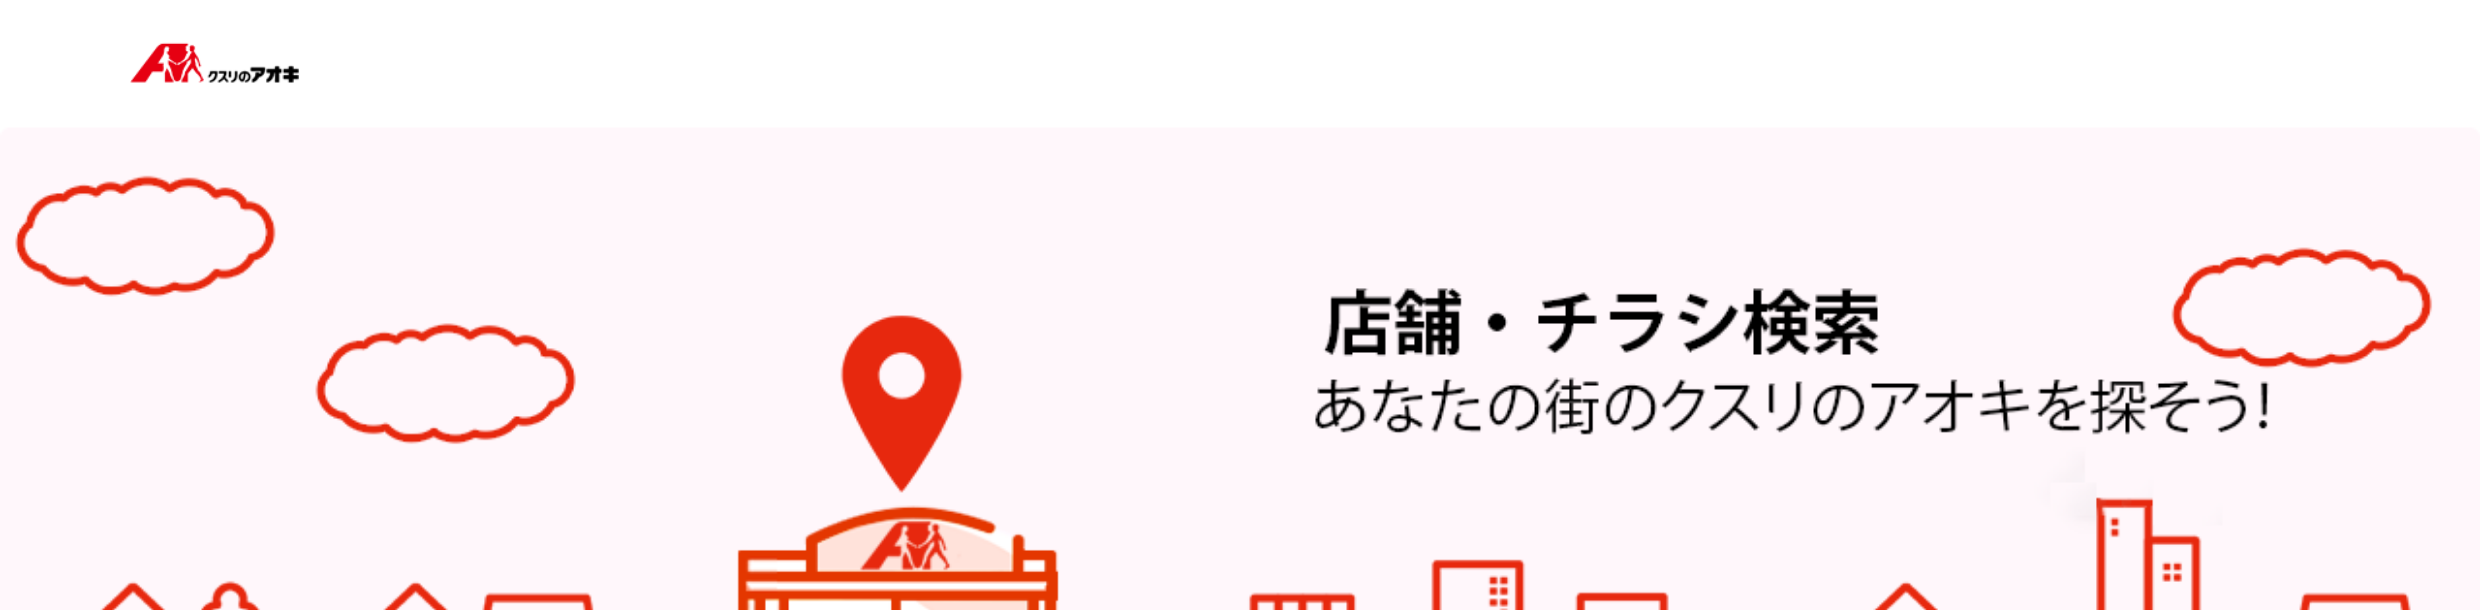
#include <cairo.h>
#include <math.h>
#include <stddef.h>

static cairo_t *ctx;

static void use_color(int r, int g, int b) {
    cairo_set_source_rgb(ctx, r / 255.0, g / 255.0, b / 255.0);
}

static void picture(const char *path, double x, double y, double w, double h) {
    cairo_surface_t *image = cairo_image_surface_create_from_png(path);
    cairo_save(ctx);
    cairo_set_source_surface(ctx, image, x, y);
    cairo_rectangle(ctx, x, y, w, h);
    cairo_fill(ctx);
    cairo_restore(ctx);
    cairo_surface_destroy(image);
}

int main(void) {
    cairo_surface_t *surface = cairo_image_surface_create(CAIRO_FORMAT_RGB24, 2480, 610);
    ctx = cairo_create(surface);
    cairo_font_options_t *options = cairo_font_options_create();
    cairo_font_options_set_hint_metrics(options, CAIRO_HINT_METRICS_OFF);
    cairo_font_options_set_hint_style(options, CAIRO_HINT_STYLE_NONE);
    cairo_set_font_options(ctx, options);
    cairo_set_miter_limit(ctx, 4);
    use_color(255, 255, 255);
    cairo_paint(ctx);
    picture("img1.png", 130, 42, 169, 41);
    picture("img2.png", 0, 127, 2480, 483);
    cairo_surface_write_to_png(surface, "result.png");
    cairo_font_options_destroy(options);
    cairo_destroy(ctx);
    cairo_surface_destroy(surface);
    return 0;
}
